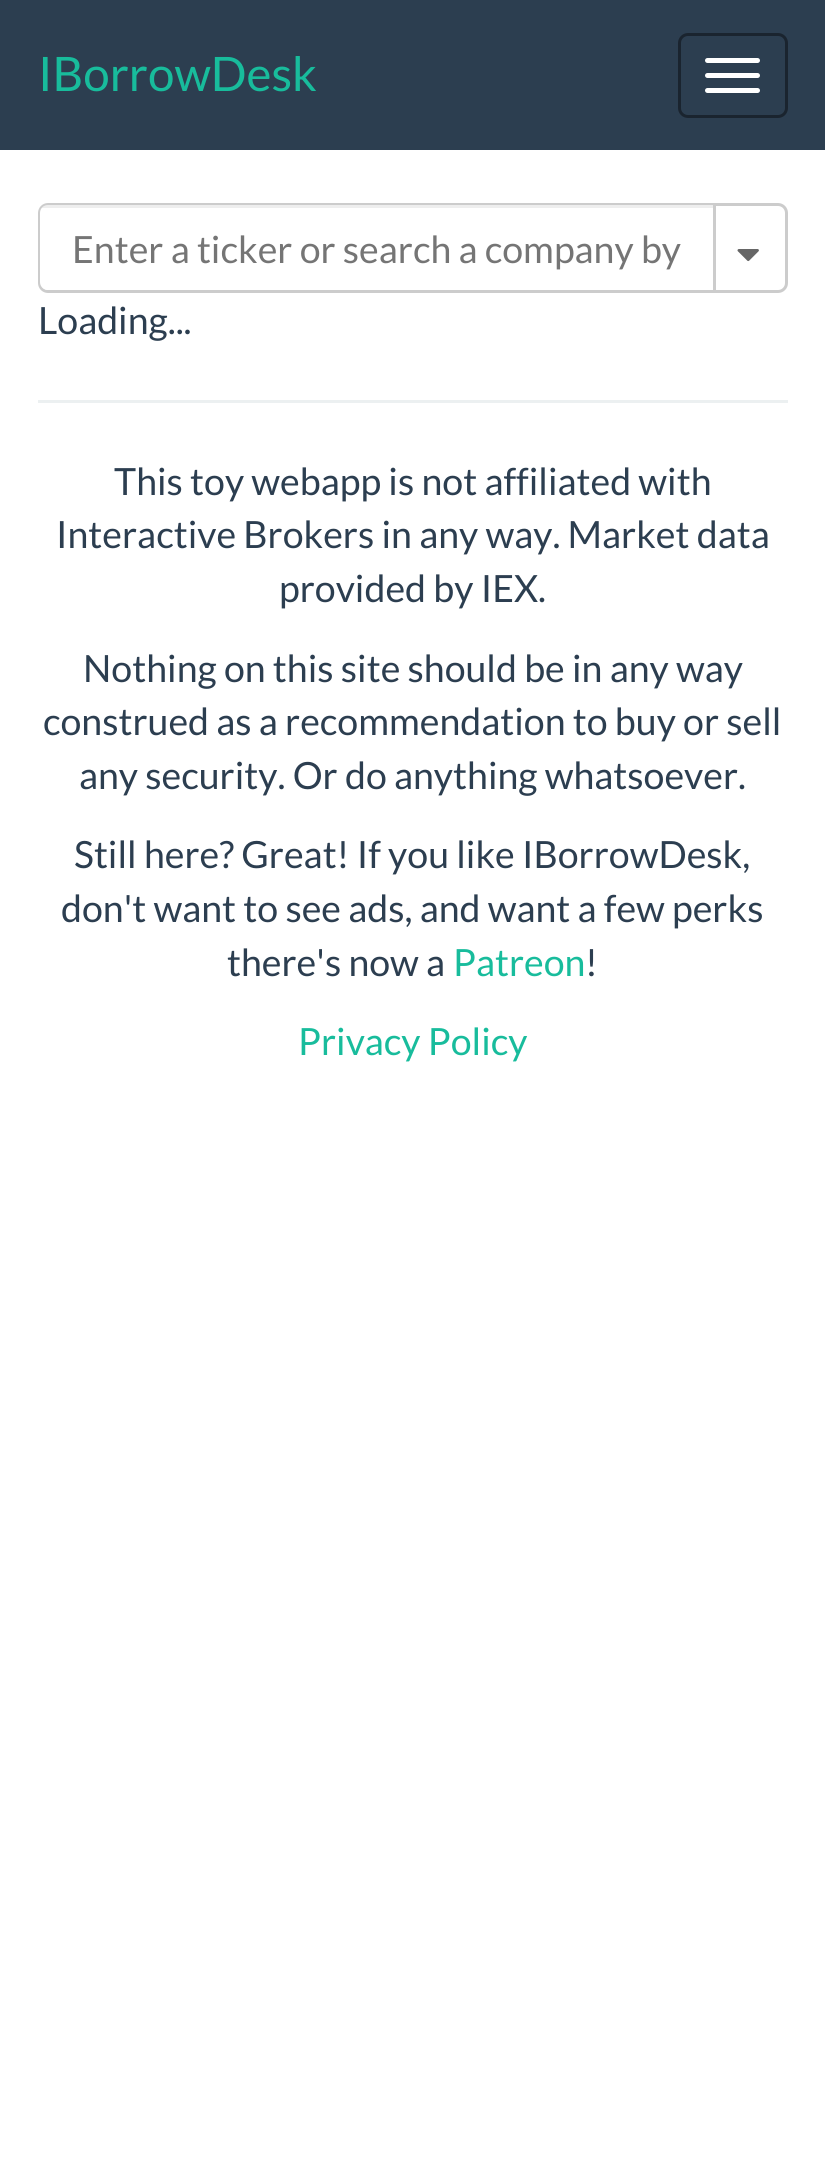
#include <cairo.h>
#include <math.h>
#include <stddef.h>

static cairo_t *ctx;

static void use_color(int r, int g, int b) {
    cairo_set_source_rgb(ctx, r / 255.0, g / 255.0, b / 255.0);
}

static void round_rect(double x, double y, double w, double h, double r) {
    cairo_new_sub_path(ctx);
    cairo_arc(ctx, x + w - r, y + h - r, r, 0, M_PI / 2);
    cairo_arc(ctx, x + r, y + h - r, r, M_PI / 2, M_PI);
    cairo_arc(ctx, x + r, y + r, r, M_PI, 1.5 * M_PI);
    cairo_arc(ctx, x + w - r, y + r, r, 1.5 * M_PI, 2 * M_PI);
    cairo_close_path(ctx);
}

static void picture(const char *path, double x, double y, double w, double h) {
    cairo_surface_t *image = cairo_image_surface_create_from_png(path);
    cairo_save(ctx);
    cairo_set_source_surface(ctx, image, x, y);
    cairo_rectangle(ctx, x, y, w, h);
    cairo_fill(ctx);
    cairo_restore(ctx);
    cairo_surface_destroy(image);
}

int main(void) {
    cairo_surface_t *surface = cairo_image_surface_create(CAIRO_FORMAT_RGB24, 825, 2173);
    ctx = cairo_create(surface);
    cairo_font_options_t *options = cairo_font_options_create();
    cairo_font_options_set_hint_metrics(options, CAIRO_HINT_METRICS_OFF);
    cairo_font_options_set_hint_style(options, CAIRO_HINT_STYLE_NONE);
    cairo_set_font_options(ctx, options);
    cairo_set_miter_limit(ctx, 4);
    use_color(255, 255, 255);
    cairo_paint(ctx);
    use_color(44, 62, 80);
    cairo_rectangle(ctx, 0, 0, 825, 150);
    cairo_fill(ctx);
    cairo_select_font_face(ctx, "Lato", CAIRO_FONT_SLANT_NORMAL, CAIRO_FONT_WEIGHT_NORMAL);
    cairo_set_font_size(ctx, 47.5);
    use_color(24, 188, 156);
    cairo_move_to(ctx, 38, 91);
    cairo_show_text(ctx, "IBorrowDesk");
    round_rect(679.5, 34.5, 107, 82, 8.5);
    use_color(26, 36, 47);
    cairo_set_line_width(ctx, 3);
    cairo_stroke(ctx);
    use_color(255, 255, 255);
    round_rect(705, 58, 55, 5, 2.5);
    cairo_fill(ctx);
    round_rect(705, 73, 55, 5, 2.5);
    cairo_fill(ctx);
    round_rect(705, 88, 55, 5, 2.5);
    cairo_fill(ctx);
    round_rect(39.5, 204.5, 747, 87, 8.5);
    use_color(204, 204, 204);
    cairo_stroke(ctx);
    use_color(255, 255, 255);
    cairo_new_path(ctx);
    cairo_move_to(ctx, 48, 205);
    cairo_line_to(ctx, 713, 205);
    cairo_line_to(ctx, 713, 290);
    cairo_line_to(ctx, 48, 290);
    cairo_curve_to(ctx, 43.5, 290, 40, 286.5, 40, 282);
    cairo_line_to(ctx, 40, 213);
    cairo_curve_to(ctx, 40, 208.5, 43.5, 205, 48, 205);
    cairo_close_path(ctx);
    cairo_fill(ctx);
    cairo_save(ctx);
    round_rect(40, 205, 745, 85, 8);
    cairo_clip(ctx);
    cairo_set_source_rgba(ctx, 0, 0, 0, 0.07);
    cairo_rectangle(ctx, 40, 205, 673, 3);
    cairo_fill(ctx);
    cairo_restore(ctx);
    cairo_set_font_size(ctx, 37.5);
    use_color(117, 117, 117);
    cairo_move_to(ctx, 72, 263);
    cairo_show_text(ctx, "Enter a ticker or search a company by");
    use_color(204, 204, 204);
    cairo_rectangle(ctx, 713, 205, 3, 85);
    cairo_fill(ctx);
    picture("img1.png", 737, 249, 22, 13);
    use_color(44, 62, 80);
    cairo_move_to(ctx, 38, 334);
    cairo_show_text(ctx, "Loading...");
    use_color(236, 240, 241);
    cairo_rectangle(ctx, 38, 400, 750, 3);
    cairo_fill(ctx);
    use_color(44, 62, 80);
    cairo_move_to(ctx, 114, 495);
    cairo_show_text(ctx, "This toy webapp is not affiliated with");
    cairo_move_to(ctx, 56, 548);
    cairo_show_text(ctx, "Interactive Brokers in any way. Market data");
    cairo_move_to(ctx, 279, 602);
    cairo_show_text(ctx, "provided by IEX.");
    cairo_move_to(ctx, 83, 682);
    cairo_show_text(ctx, "Nothing on this site should be in any way");
    cairo_move_to(ctx, 43, 735);
    cairo_show_text(ctx, "construed as a recommendation to buy or sell");
    cairo_move_to(ctx, 79, 789);
    cairo_show_text(ctx, "any security. Or do anything whatsoever.");
    cairo_move_to(ctx, 74, 868);
    cairo_show_text(ctx, "Still here? Great! If you like IBorrowDesk,");
    cairo_move_to(ctx, 61, 922);
    cairo_show_text(ctx, "don't want to see ads, and want a few perks");
    cairo_move_to(ctx, 227, 976);
    cairo_show_text(ctx, "there's now a");
    use_color(24, 188, 156);
    cairo_move_to(ctx, 453, 976);
    cairo_show_text(ctx, "Patreon");
    use_color(44, 62, 80);
    cairo_move_to(ctx, 585, 976);
    cairo_show_text(ctx, "!");
    use_color(24, 188, 156);
    cairo_move_to(ctx, 298, 1055);
    cairo_show_text(ctx, "Privacy Policy");
    cairo_surface_write_to_png(surface, "result.png");
    cairo_font_options_destroy(options);
    cairo_destroy(ctx);
    cairo_surface_destroy(surface);
    return 0;
}
